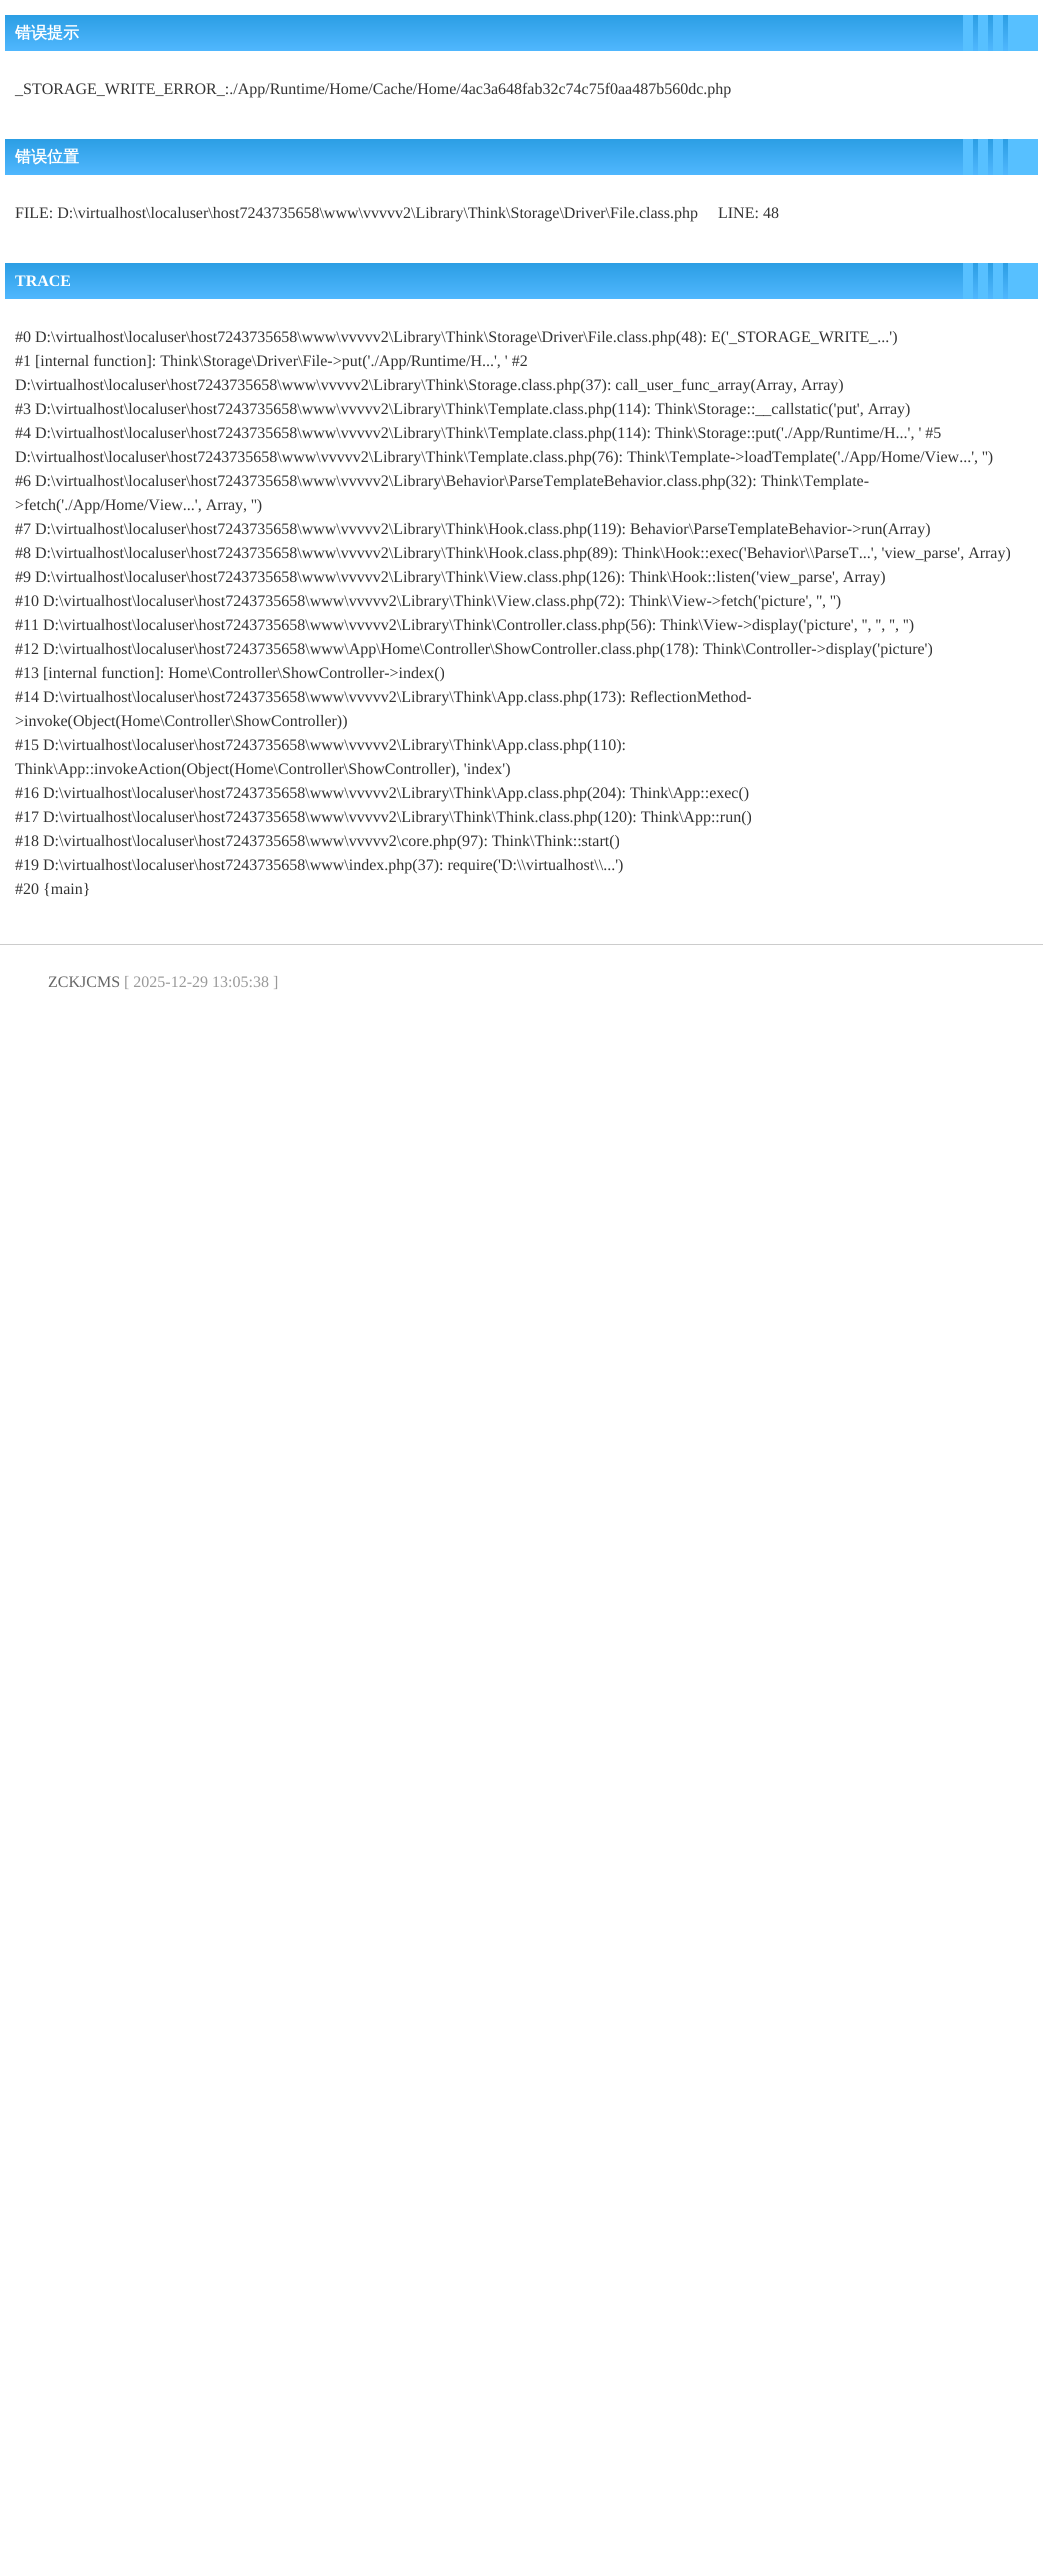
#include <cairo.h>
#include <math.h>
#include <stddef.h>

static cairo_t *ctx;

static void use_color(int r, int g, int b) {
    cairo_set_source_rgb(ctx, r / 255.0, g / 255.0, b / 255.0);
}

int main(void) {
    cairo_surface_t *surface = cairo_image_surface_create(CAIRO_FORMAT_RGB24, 1043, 2551);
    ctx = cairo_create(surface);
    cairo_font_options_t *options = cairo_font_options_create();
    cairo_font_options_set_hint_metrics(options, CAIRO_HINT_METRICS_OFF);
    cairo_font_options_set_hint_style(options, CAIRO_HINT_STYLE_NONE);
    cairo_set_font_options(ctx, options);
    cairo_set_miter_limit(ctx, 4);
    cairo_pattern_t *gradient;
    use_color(255, 255, 255);
    cairo_paint(ctx);
    gradient = cairo_pattern_create_linear(522, 15, 522, 51);
    cairo_pattern_add_color_stop_rgba(gradient, 0, 0.169, 0.62, 0.894, 1);
    cairo_pattern_add_color_stop_rgba(gradient, 1, 0.31, 0.718, 0.996, 1);
    cairo_set_source(ctx, gradient);
    cairo_pattern_destroy(gradient);
    cairo_rectangle(ctx, 5, 15, 1003, 36);
    cairo_fill(ctx);
    cairo_select_font_face(ctx, "WenQuanYi Zen Hei", CAIRO_FONT_SLANT_NORMAL, CAIRO_FONT_WEIGHT_BOLD);
    cairo_set_font_size(ctx, 16);
    use_color(255, 255, 255);
    cairo_move_to(ctx, 15, 38);
    cairo_show_text(ctx, "错误提示");
    use_color(87, 192, 255);
    cairo_rectangle(ctx, 963, 15, 10, 36);
    cairo_fill(ctx);
    cairo_rectangle(ctx, 978, 15, 10, 36);
    cairo_fill(ctx);
    cairo_rectangle(ctx, 993, 15, 10, 36);
    cairo_fill(ctx);
    cairo_rectangle(ctx, 1008, 15, 30, 36);
    cairo_fill(ctx);
    cairo_select_font_face(ctx, "Liberation Serif", CAIRO_FONT_SLANT_NORMAL, CAIRO_FONT_WEIGHT_NORMAL);
    use_color(51, 51, 51);
    cairo_move_to(ctx, 15, 94);
    cairo_show_text(ctx, "_STORAGE_WRITE_ERROR_:./App/Runtime/Home/Cache/Home/4ac3a648fab32c74c75f0aa487b560dc.php");
    gradient = cairo_pattern_create_linear(522, 139, 522, 175);
    cairo_pattern_add_color_stop_rgba(gradient, 0, 0.169, 0.62, 0.894, 1);
    cairo_pattern_add_color_stop_rgba(gradient, 1, 0.31, 0.718, 0.996, 1);
    cairo_set_source(ctx, gradient);
    cairo_pattern_destroy(gradient);
    cairo_rectangle(ctx, 5, 139, 1003, 36);
    cairo_fill(ctx);
    cairo_select_font_face(ctx, "WenQuanYi Zen Hei", CAIRO_FONT_SLANT_NORMAL, CAIRO_FONT_WEIGHT_BOLD);
    use_color(255, 255, 255);
    cairo_move_to(ctx, 15, 162);
    cairo_show_text(ctx, "错误位置");
    use_color(87, 192, 255);
    cairo_rectangle(ctx, 963, 139, 10, 36);
    cairo_fill(ctx);
    cairo_rectangle(ctx, 978, 139, 10, 36);
    cairo_fill(ctx);
    cairo_rectangle(ctx, 993, 139, 10, 36);
    cairo_fill(ctx);
    cairo_rectangle(ctx, 1008, 139, 30, 36);
    cairo_fill(ctx);
    cairo_select_font_face(ctx, "Liberation Serif", CAIRO_FONT_SLANT_NORMAL, CAIRO_FONT_WEIGHT_NORMAL);
    use_color(51, 51, 51);
    cairo_move_to(ctx, 15, 218);
    cairo_show_text(ctx, "FILE: D:\\virtualhost\\localuser\\host7243735658\\www\\vvvvv2\\Library\\Think\\Storage\\Driver\\File.class.php");
    cairo_move_to(ctx, 718, 218);
    cairo_show_text(ctx, "LINE: 48");
    gradient = cairo_pattern_create_linear(522, 263, 522, 299);
    cairo_pattern_add_color_stop_rgba(gradient, 0, 0.169, 0.62, 0.894, 1);
    cairo_pattern_add_color_stop_rgba(gradient, 1, 0.31, 0.718, 0.996, 1);
    cairo_set_source(ctx, gradient);
    cairo_pattern_destroy(gradient);
    cairo_rectangle(ctx, 5, 263, 1003, 36);
    cairo_fill(ctx);
    cairo_select_font_face(ctx, "Liberation Serif", CAIRO_FONT_SLANT_NORMAL, CAIRO_FONT_WEIGHT_BOLD);
    use_color(255, 255, 255);
    cairo_move_to(ctx, 15, 286);
    cairo_show_text(ctx, "TRACE");
    use_color(87, 192, 255);
    cairo_rectangle(ctx, 963, 263, 10, 36);
    cairo_fill(ctx);
    cairo_rectangle(ctx, 978, 263, 10, 36);
    cairo_fill(ctx);
    cairo_rectangle(ctx, 993, 263, 10, 36);
    cairo_fill(ctx);
    cairo_rectangle(ctx, 1008, 263, 30, 36);
    cairo_fill(ctx);
    cairo_select_font_face(ctx, "Liberation Serif", CAIRO_FONT_SLANT_NORMAL, CAIRO_FONT_WEIGHT_NORMAL);
    use_color(51, 51, 51);
    cairo_move_to(ctx, 15, 342);
    cairo_show_text(ctx, "#0 D:\\virtualhost\\localuser\\host7243735658\\www\\vvvvv2\\Library\\Think\\Storage\\Driver\\File.class.php(48): E('_STORAGE_WRITE_...')");
    cairo_move_to(ctx, 15, 366);
    cairo_show_text(ctx, "#1 [internal function]: Think\\Storage\\Driver\\File->put('./App/Runtime/H...', ' #2");
    cairo_move_to(ctx, 15, 390);
    cairo_show_text(ctx, "D:\\virtualhost\\localuser\\host7243735658\\www\\vvvvv2\\Library\\Think\\Storage.class.php(37): call_user_func_array(Array, Array)");
    cairo_move_to(ctx, 15, 414);
    cairo_show_text(ctx, "#3 D:\\virtualhost\\localuser\\host7243735658\\www\\vvvvv2\\Library\\Think\\Template.class.php(114): Think\\Storage::__callstatic('put', Array)");
    cairo_move_to(ctx, 15, 438);
    cairo_show_text(ctx, "#4 D:\\virtualhost\\localuser\\host7243735658\\www\\vvvvv2\\Library\\Think\\Template.class.php(114): Think\\Storage::put('./App/Runtime/H...', ' #5");
    cairo_move_to(ctx, 15, 462);
    cairo_show_text(ctx, "D:\\virtualhost\\localuser\\host7243735658\\www\\vvvvv2\\Library\\Think\\Template.class.php(76): Think\\Template->loadTemplate('./App/Home/View...', '')");
    cairo_move_to(ctx, 15, 486);
    cairo_show_text(ctx, "#6 D:\\virtualhost\\localuser\\host7243735658\\www\\vvvvv2\\Library\\Behavior\\ParseTemplateBehavior.class.php(32): Think\\Template-");
    cairo_move_to(ctx, 15, 510);
    cairo_show_text(ctx, ">fetch('./App/Home/View...', Array, '')");
    cairo_move_to(ctx, 15, 534);
    cairo_show_text(ctx, "#7 D:\\virtualhost\\localuser\\host7243735658\\www\\vvvvv2\\Library\\Think\\Hook.class.php(119): Behavior\\ParseTemplateBehavior->run(Array)");
    cairo_move_to(ctx, 15, 558);
    cairo_show_text(ctx, "#8 D:\\virtualhost\\localuser\\host7243735658\\www\\vvvvv2\\Library\\Think\\Hook.class.php(89): Think\\Hook::exec('Behavior\\\\ParseT...', 'view_parse', Array)");
    cairo_move_to(ctx, 15, 582);
    cairo_show_text(ctx, "#9 D:\\virtualhost\\localuser\\host7243735658\\www\\vvvvv2\\Library\\Think\\View.class.php(126): Think\\Hook::listen('view_parse', Array)");
    cairo_move_to(ctx, 15, 606);
    cairo_show_text(ctx, "#10 D:\\virtualhost\\localuser\\host7243735658\\www\\vvvvv2\\Library\\Think\\View.class.php(72): Think\\View->fetch('picture', '', '')");
    cairo_move_to(ctx, 15, 630);
    cairo_show_text(ctx, "#11 D:\\virtualhost\\localuser\\host7243735658\\www\\vvvvv2\\Library\\Think\\Controller.class.php(56): Think\\View->display('picture', '', '', '', '')");
    cairo_move_to(ctx, 15, 654);
    cairo_show_text(ctx, "#12 D:\\virtualhost\\localuser\\host7243735658\\www\\App\\Home\\Controller\\ShowController.class.php(178): Think\\Controller->display('picture')");
    cairo_move_to(ctx, 15, 678);
    cairo_show_text(ctx, "#13 [internal function]: Home\\Controller\\ShowController->index()");
    cairo_move_to(ctx, 15, 702);
    cairo_show_text(ctx, "#14 D:\\virtualhost\\localuser\\host7243735658\\www\\vvvvv2\\Library\\Think\\App.class.php(173): ReflectionMethod-");
    cairo_move_to(ctx, 15, 726);
    cairo_show_text(ctx, ">invoke(Object(Home\\Controller\\ShowController))");
    cairo_move_to(ctx, 15, 750);
    cairo_show_text(ctx, "#15 D:\\virtualhost\\localuser\\host7243735658\\www\\vvvvv2\\Library\\Think\\App.class.php(110):");
    cairo_move_to(ctx, 15, 774);
    cairo_show_text(ctx, "Think\\App::invokeAction(Object(Home\\Controller\\ShowController), 'index')");
    cairo_move_to(ctx, 15, 798);
    cairo_show_text(ctx, "#16 D:\\virtualhost\\localuser\\host7243735658\\www\\vvvvv2\\Library\\Think\\App.class.php(204): Think\\App::exec()");
    cairo_move_to(ctx, 15, 822);
    cairo_show_text(ctx, "#17 D:\\virtualhost\\localuser\\host7243735658\\www\\vvvvv2\\Library\\Think\\Think.class.php(120): Think\\App::run()");
    cairo_move_to(ctx, 15, 846);
    cairo_show_text(ctx, "#18 D:\\virtualhost\\localuser\\host7243735658\\www\\vvvvv2\\core.php(97): Think\\Think::start()");
    cairo_move_to(ctx, 15, 870);
    cairo_show_text(ctx, "#19 D:\\virtualhost\\localuser\\host7243735658\\www\\index.php(37): require('D:\\\\virtualhost\\\\...')");
    cairo_move_to(ctx, 15, 894);
    cairo_show_text(ctx, "#20 {main}");
    use_color(204, 204, 204);
    cairo_rectangle(ctx, 0, 944, 1043, 1);
    cairo_fill(ctx);
    use_color(102, 102, 102);
    cairo_move_to(ctx, 48, 987);
    cairo_show_text(ctx, "ZCKJCMS");
    use_color(153, 153, 153);
    cairo_move_to(ctx, 124, 987);
    cairo_show_text(ctx, "[ 2025-12-29 13:05:38 ]");
    cairo_surface_write_to_png(surface, "result.png");
    cairo_font_options_destroy(options);
    cairo_destroy(ctx);
    cairo_surface_destroy(surface);
    return 0;
}
